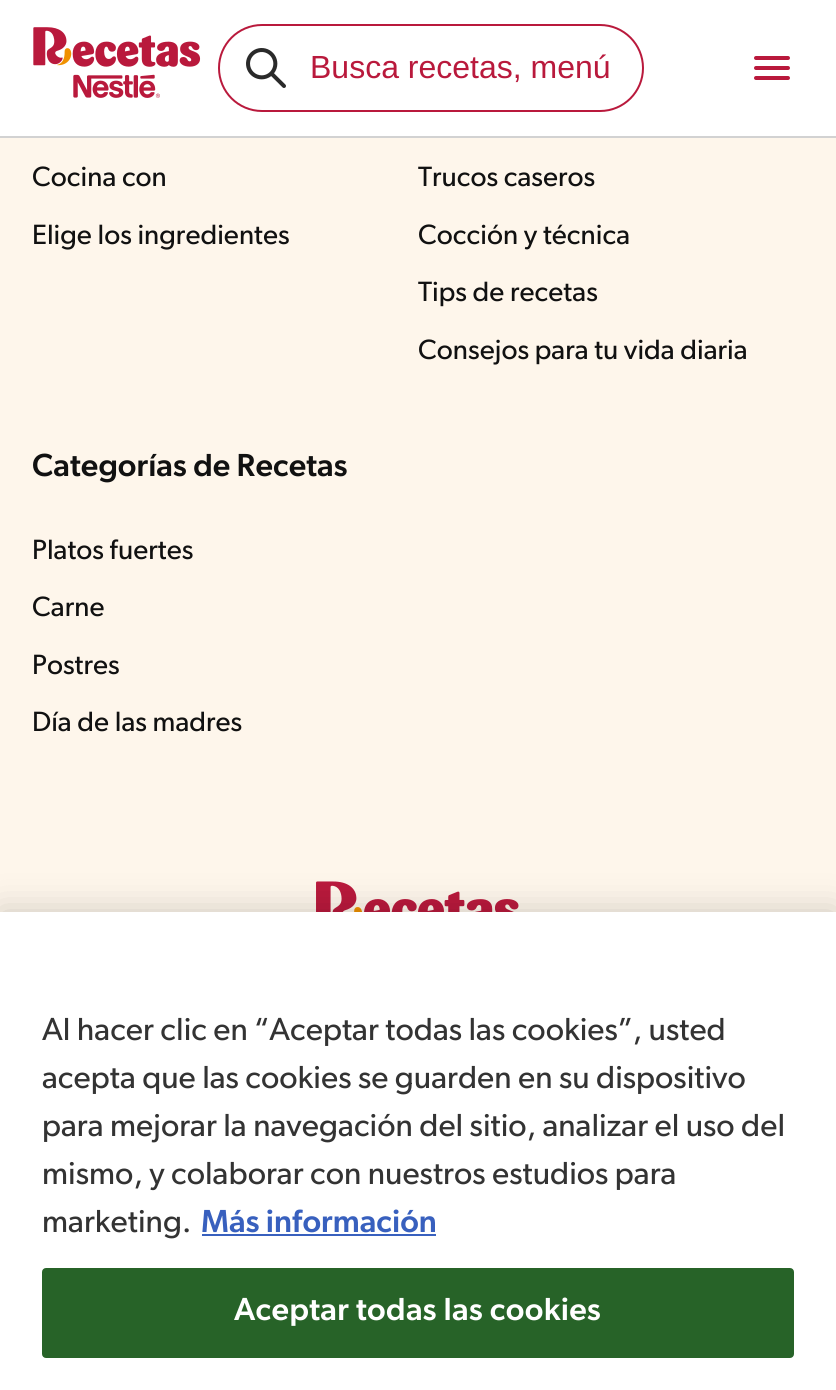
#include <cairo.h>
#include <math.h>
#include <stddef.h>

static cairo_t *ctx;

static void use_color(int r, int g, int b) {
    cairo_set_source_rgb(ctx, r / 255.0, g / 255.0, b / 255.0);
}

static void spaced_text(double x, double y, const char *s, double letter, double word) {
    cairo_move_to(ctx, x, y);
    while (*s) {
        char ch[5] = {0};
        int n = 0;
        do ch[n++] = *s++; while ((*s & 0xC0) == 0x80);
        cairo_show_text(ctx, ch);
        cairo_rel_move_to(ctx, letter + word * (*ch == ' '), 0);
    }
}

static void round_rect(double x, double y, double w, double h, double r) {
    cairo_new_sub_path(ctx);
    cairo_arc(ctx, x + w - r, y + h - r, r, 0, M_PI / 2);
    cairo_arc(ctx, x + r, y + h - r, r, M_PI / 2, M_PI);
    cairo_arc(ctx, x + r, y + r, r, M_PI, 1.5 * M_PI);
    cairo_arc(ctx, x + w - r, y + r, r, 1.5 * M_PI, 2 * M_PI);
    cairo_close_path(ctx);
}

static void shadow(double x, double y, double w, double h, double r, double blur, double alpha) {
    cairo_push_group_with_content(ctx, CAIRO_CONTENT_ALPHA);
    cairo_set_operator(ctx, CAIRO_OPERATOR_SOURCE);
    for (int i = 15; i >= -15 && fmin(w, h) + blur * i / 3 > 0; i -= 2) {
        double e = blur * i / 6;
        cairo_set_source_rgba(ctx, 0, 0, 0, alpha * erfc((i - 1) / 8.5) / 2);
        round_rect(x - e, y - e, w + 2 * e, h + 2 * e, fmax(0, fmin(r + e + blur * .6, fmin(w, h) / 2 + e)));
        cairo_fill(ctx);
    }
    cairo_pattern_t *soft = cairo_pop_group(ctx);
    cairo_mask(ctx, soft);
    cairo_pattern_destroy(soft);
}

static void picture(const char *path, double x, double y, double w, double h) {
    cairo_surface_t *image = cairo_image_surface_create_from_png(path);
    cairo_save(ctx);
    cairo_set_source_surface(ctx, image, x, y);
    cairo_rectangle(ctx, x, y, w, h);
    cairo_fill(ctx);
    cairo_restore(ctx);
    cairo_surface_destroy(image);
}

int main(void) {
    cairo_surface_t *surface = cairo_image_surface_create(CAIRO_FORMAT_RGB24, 836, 1390);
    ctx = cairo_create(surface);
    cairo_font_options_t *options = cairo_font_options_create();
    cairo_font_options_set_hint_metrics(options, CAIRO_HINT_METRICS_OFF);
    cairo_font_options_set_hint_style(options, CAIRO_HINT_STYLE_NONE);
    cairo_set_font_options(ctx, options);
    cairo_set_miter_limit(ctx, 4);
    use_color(254, 246, 235);
    cairo_paint(ctx);
    use_color(255, 255, 255);
    cairo_rectangle(ctx, 0, 0, 836, 136);
    cairo_fill(ctx);
    use_color(210, 210, 210);
    cairo_rectangle(ctx, 0, 136, 836, 2);
    cairo_fill(ctx);
    picture("img1.png", 33, 27, 168, 71);
    round_rect(219, 25, 424, 86, 43);
    use_color(185, 25, 60);
    cairo_stroke(ctx);
    picture("img2.png", 246, 48, 40, 40);
    cairo_select_font_face(ctx, "Liberation Sans", CAIRO_FONT_SLANT_NORMAL, CAIRO_FONT_WEIGHT_NORMAL);
    cairo_set_font_size(ctx, 32);
    cairo_move_to(ctx, 310, 78);
    cairo_show_text(ctx, "Busca recetas, menú");
    round_rect(754, 56, 36, 4, 2);
    cairo_fill(ctx);
    round_rect(754, 66, 36, 4, 2);
    cairo_fill(ctx);
    round_rect(754, 76, 36, 4, 2);
    cairo_fill(ctx);
    cairo_select_font_face(ctx, "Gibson", CAIRO_FONT_SLANT_NORMAL, CAIRO_FONT_WEIGHT_NORMAL);
    cairo_set_font_size(ctx, 28);
    use_color(17, 17, 17);
    cairo_move_to(ctx, 32, 186);
    cairo_show_text(ctx, "Cocina con");
    cairo_move_to(ctx, 32, 244);
    cairo_show_text(ctx, "Elige los ingredientes");
    cairo_move_to(ctx, 418, 186);
    cairo_show_text(ctx, "Trucos caseros");
    cairo_move_to(ctx, 418, 244);
    cairo_show_text(ctx, "Cocción y técnica");
    cairo_move_to(ctx, 418, 301);
    cairo_show_text(ctx, "Tips de recetas");
    cairo_move_to(ctx, 418, 359);
    cairo_show_text(ctx, "Consejos para tu vida diaria");
    cairo_select_font_face(ctx, "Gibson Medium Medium", CAIRO_FONT_SLANT_NORMAL, CAIRO_FONT_WEIGHT_NORMAL);
    cairo_set_font_size(ctx, 32);
    cairo_move_to(ctx, 32, 476);
    cairo_show_text(ctx, "Categorías de Recetas");
    cairo_select_font_face(ctx, "Gibson", CAIRO_FONT_SLANT_NORMAL, CAIRO_FONT_WEIGHT_NORMAL);
    cairo_set_font_size(ctx, 28);
    cairo_move_to(ctx, 32, 559);
    cairo_show_text(ctx, "Platos fuertes");
    cairo_move_to(ctx, 32, 616);
    cairo_show_text(ctx, "Carne");
    cairo_move_to(ctx, 32, 674);
    cairo_show_text(ctx, "Postres");
    cairo_move_to(ctx, 32, 731);
    cairo_show_text(ctx, "Día de las madres");
    picture("img3.png", 316, 881, 203, 31);
    use_color(0, 0, 0);
    shadow(0, 912, 836, 478, 0, 18, 0.2);
    use_color(255, 255, 255);
    cairo_rectangle(ctx, 0, 912, 836, 478);
    cairo_fill(ctx);
    cairo_set_font_size(ctx, 32);
    use_color(51, 51, 51);
    cairo_move_to(ctx, 42, 1040);
    cairo_show_text(ctx, "Al hacer clic en “Aceptar todas las cookies”, usted");
    cairo_move_to(ctx, 42, 1088);
    cairo_show_text(ctx, "acepta que las cookies se guarden en su dispositivo");
    cairo_move_to(ctx, 42, 1136);
    cairo_show_text(ctx, "para mejorar la navegación del sitio, analizar el uso del");
    cairo_move_to(ctx, 42, 1184);
    cairo_show_text(ctx, "mismo, y colaborar con nuestros estudios para");
    cairo_move_to(ctx, 42, 1232);
    cairo_show_text(ctx, "marketing.");
    cairo_select_font_face(ctx, "Gibson Medium Medium", CAIRO_FONT_SLANT_NORMAL, CAIRO_FONT_WEIGHT_NORMAL);
    use_color(56, 96, 190);
    cairo_move_to(ctx, 201, 1232);
    cairo_show_text(ctx, "Más información");
    cairo_rectangle(ctx, 202, 1234, 234, 2);
    cairo_fill(ctx);
    use_color(39, 99, 40);
    round_rect(43, 1269, 750, 88, 3);
    cairo_fill_preserve(ctx);
    cairo_stroke(ctx);
    use_color(255, 255, 255);
    spaced_text(234, 1320, "Aceptar todas las cookies", 0.3, 0);
    cairo_surface_write_to_png(surface, "result.png");
    cairo_font_options_destroy(options);
    cairo_destroy(ctx);
    cairo_surface_destroy(surface);
    return 0;
}
